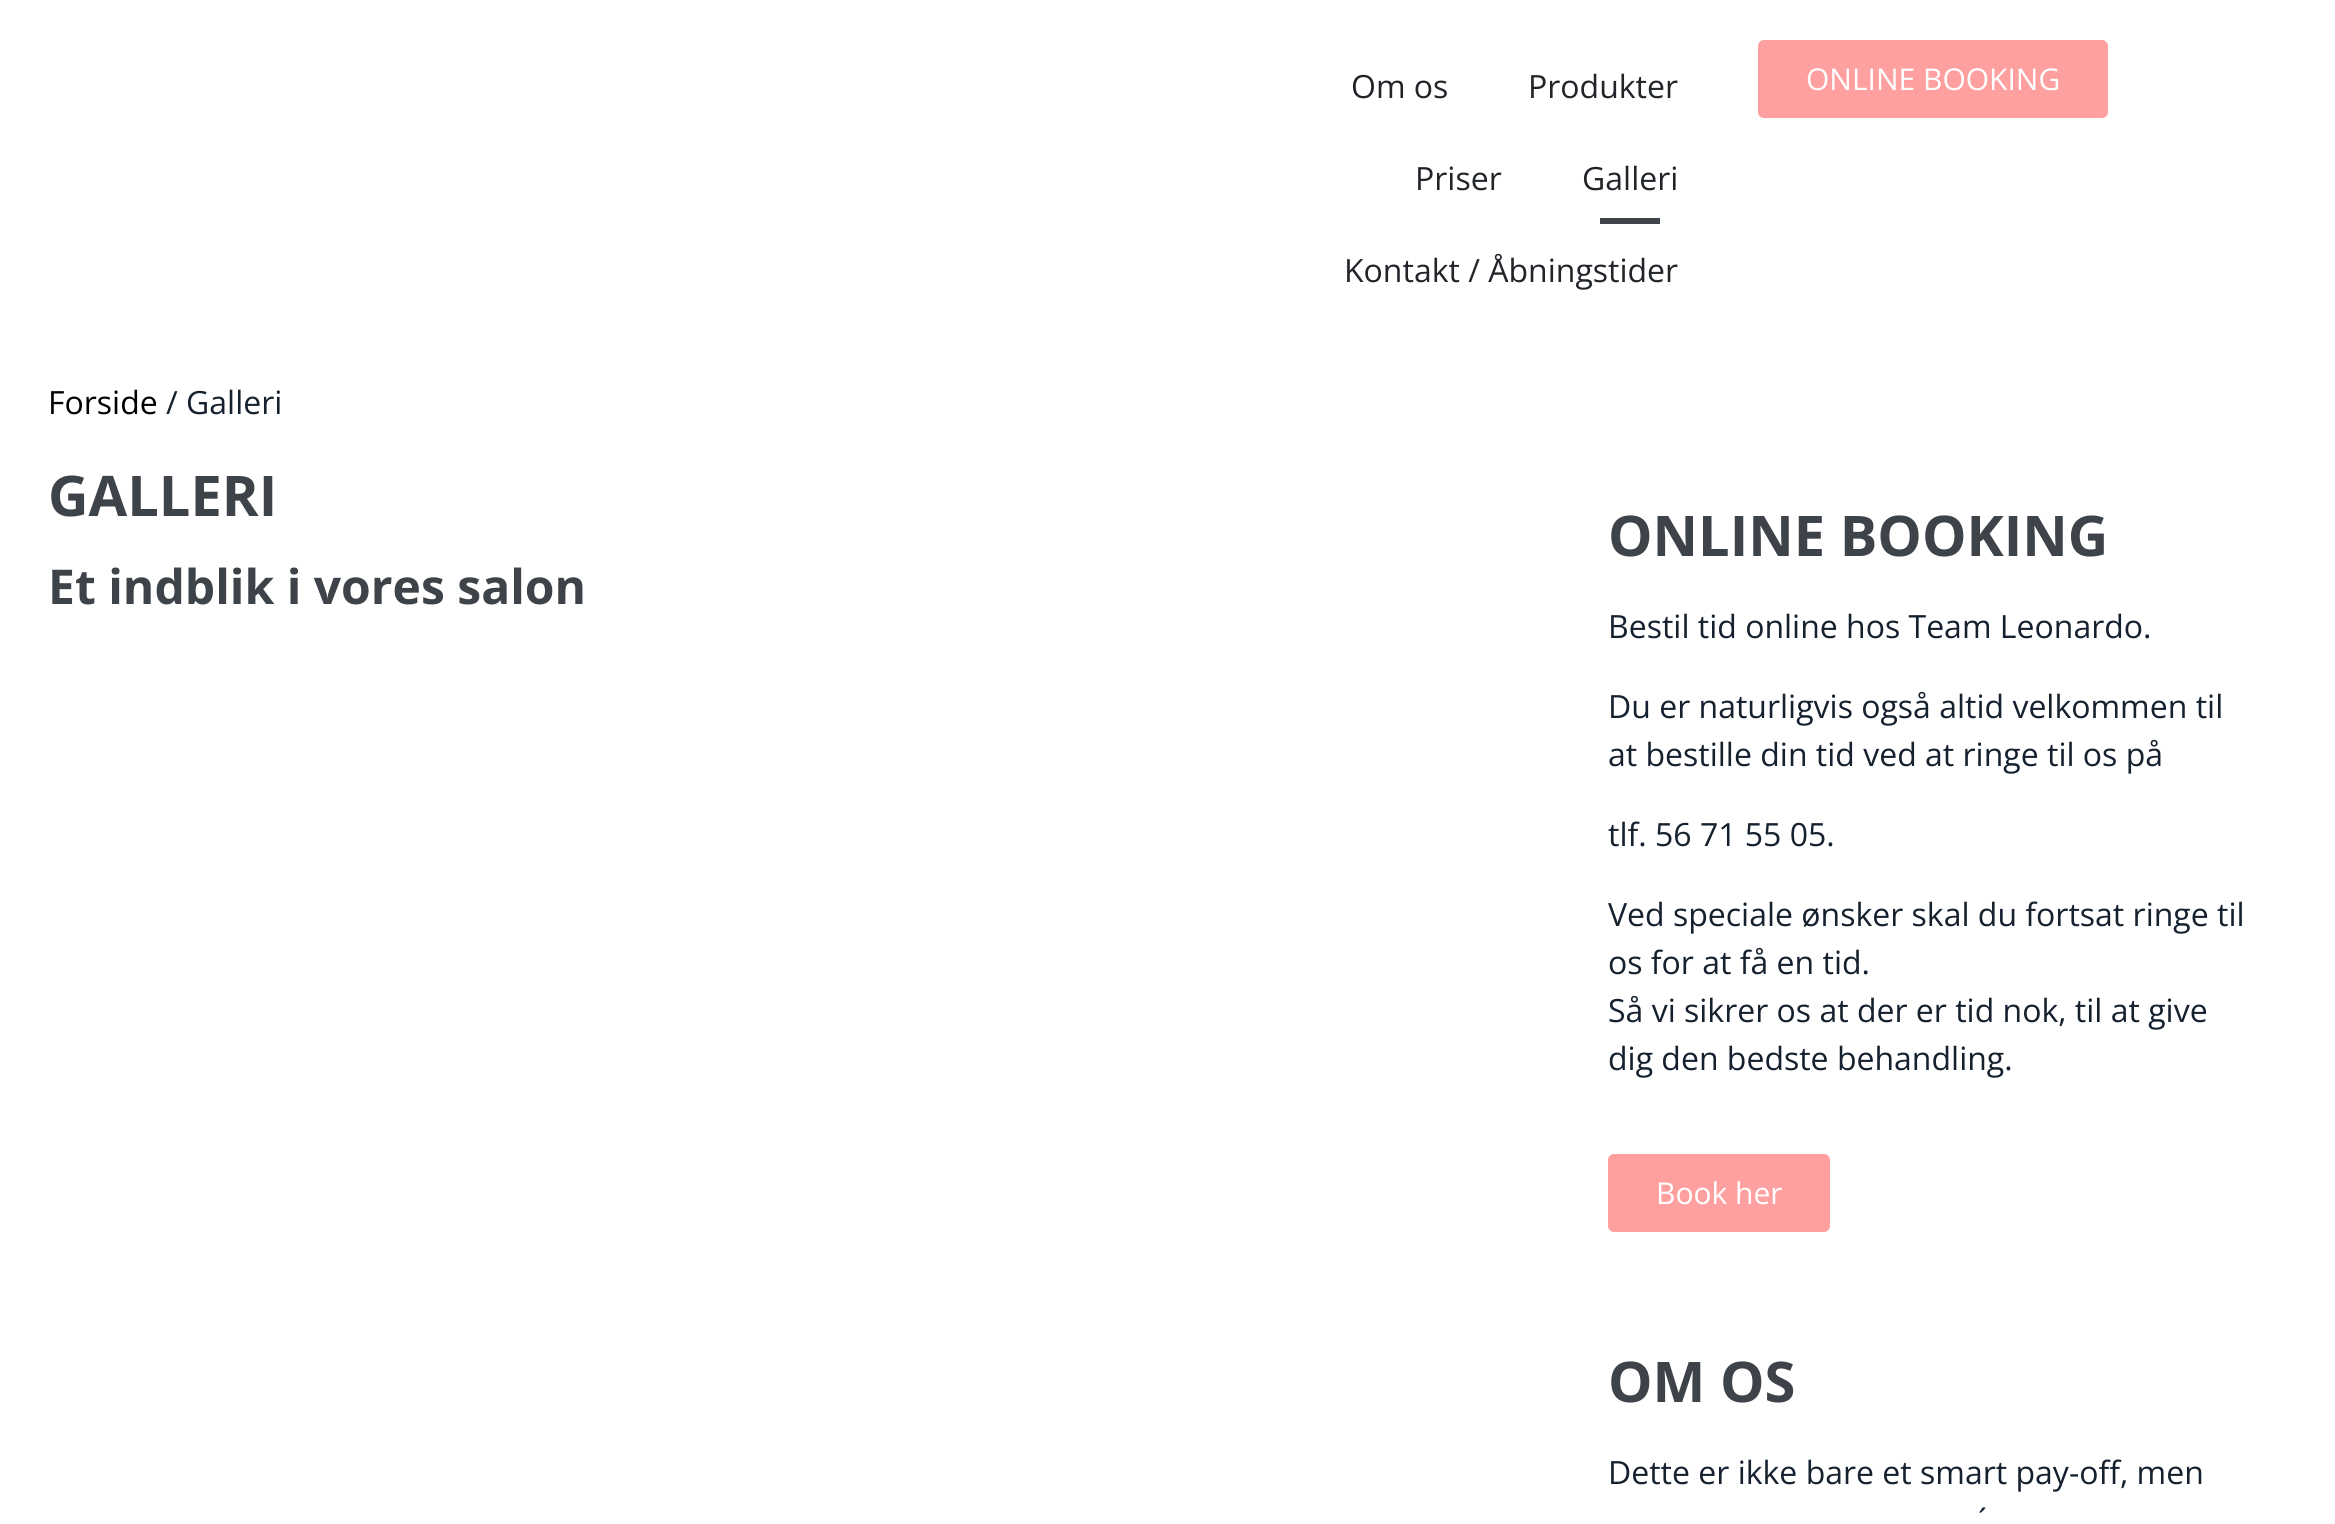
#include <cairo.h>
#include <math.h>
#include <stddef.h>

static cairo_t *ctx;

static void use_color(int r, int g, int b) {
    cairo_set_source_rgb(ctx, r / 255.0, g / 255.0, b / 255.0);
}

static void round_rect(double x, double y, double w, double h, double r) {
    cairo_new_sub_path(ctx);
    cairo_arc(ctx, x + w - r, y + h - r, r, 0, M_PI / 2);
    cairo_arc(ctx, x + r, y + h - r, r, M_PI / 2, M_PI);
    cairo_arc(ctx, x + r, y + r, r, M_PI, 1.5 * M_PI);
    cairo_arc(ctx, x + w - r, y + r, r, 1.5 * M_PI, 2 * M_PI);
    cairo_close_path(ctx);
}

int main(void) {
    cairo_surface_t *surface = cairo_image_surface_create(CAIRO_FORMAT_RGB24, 2335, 1524);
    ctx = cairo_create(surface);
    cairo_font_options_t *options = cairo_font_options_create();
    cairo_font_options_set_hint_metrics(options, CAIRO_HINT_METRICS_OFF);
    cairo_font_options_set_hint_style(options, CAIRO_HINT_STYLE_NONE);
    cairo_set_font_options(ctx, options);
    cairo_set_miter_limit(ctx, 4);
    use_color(255, 255, 255);
    cairo_paint(ctx);
    cairo_select_font_face(ctx, "Open Sans", CAIRO_FONT_SLANT_NORMAL, CAIRO_FONT_WEIGHT_NORMAL);
    cairo_set_font_size(ctx, 32);
    use_color(33, 37, 41);
    cairo_move_to(ctx, 1351, 98);
    cairo_show_text(ctx, "Om os");
    cairo_move_to(ctx, 1528, 98);
    cairo_show_text(ctx, "Produkter");
    cairo_move_to(ctx, 1415, 190);
    cairo_show_text(ctx, "Priser");
    cairo_move_to(ctx, 1582, 190);
    cairo_show_text(ctx, "Galleri");
    use_color(63, 68, 75);
    cairo_rectangle(ctx, 1600, 218, 60, 6);
    cairo_fill(ctx);
    use_color(33, 37, 41);
    cairo_move_to(ctx, 1344, 282);
    cairo_show_text(ctx, "Kontakt / Åbningstider");
    use_color(255, 160, 160);
    round_rect(1758, 40, 350, 78, 6);
    cairo_fill(ctx);
    cairo_set_font_size(ctx, 30);
    use_color(255, 255, 255);
    cairo_move_to(ctx, 1806, 90);
    cairo_show_text(ctx, "ONLINE BOOKING");
    cairo_set_font_size(ctx, 32);
    use_color(0, 0, 0);
    cairo_move_to(ctx, 48, 414);
    cairo_show_text(ctx, "Forside");
    use_color(21, 33, 47);
    cairo_move_to(ctx, 166, 414);
    cairo_show_text(ctx, "/ Galleri");
    cairo_select_font_face(ctx, "Open Sans", CAIRO_FONT_SLANT_NORMAL, CAIRO_FONT_WEIGHT_BOLD);
    cairo_set_font_size(ctx, 56);
    use_color(62, 67, 73);
    cairo_move_to(ctx, 48, 516);
    cairo_show_text(ctx, "GALLERI");
    cairo_set_font_size(ctx, 48);
    cairo_move_to(ctx, 48, 604);
    cairo_show_text(ctx, "Et indblik i vores salon");
    cairo_set_font_size(ctx, 56);
    cairo_move_to(ctx, 1608, 556);
    cairo_show_text(ctx, "ONLINE BOOKING");
    cairo_select_font_face(ctx, "Open Sans", CAIRO_FONT_SLANT_NORMAL, CAIRO_FONT_WEIGHT_NORMAL);
    cairo_set_font_size(ctx, 32);
    use_color(21, 33, 47);
    cairo_move_to(ctx, 1608, 638);
    cairo_show_text(ctx, "Bestil tid online hos Team Leonardo.");
    cairo_move_to(ctx, 1608, 718);
    cairo_show_text(ctx, "Du er naturligvis også altid velkommen til");
    cairo_move_to(ctx, 1608, 766);
    cairo_show_text(ctx, "at bestille din tid ved at ringe til os på");
    cairo_move_to(ctx, 1608, 846);
    cairo_show_text(ctx, "tlf. 56 71 55 05.");
    cairo_move_to(ctx, 1608, 926);
    cairo_show_text(ctx, "Ved speciale ønsker skal du fortsat ringe til");
    cairo_move_to(ctx, 1608, 974);
    cairo_show_text(ctx, "os for at få en tid.");
    cairo_move_to(ctx, 1608, 1022);
    cairo_show_text(ctx, "Så vi sikrer os at der er tid nok, til at give");
    cairo_move_to(ctx, 1608, 1070);
    cairo_show_text(ctx, "dig den bedste behandling.");
    use_color(255, 160, 160);
    round_rect(1608, 1154, 222, 78, 6);
    cairo_fill(ctx);
    cairo_set_font_size(ctx, 30);
    use_color(255, 255, 255);
    cairo_move_to(ctx, 1656, 1204);
    cairo_show_text(ctx, "Book her");
    cairo_select_font_face(ctx, "Open Sans", CAIRO_FONT_SLANT_NORMAL, CAIRO_FONT_WEIGHT_BOLD);
    cairo_set_font_size(ctx, 56);
    use_color(62, 67, 73);
    cairo_move_to(ctx, 1608, 1402);
    cairo_show_text(ctx, "OM OS");
    cairo_select_font_face(ctx, "Open Sans", CAIRO_FONT_SLANT_NORMAL, CAIRO_FONT_WEIGHT_NORMAL);
    cairo_set_font_size(ctx, 32);
    use_color(21, 33, 47);
    cairo_move_to(ctx, 1608, 1484);
    cairo_show_text(ctx, "Dette er ikke bare et smart pay-off, men");
    cairo_move_to(ctx, 1978, 1532);
    cairo_show_text(ctx, "´");
    cairo_surface_write_to_png(surface, "result.png");
    cairo_font_options_destroy(options);
    cairo_destroy(ctx);
    cairo_surface_destroy(surface);
    return 0;
}
